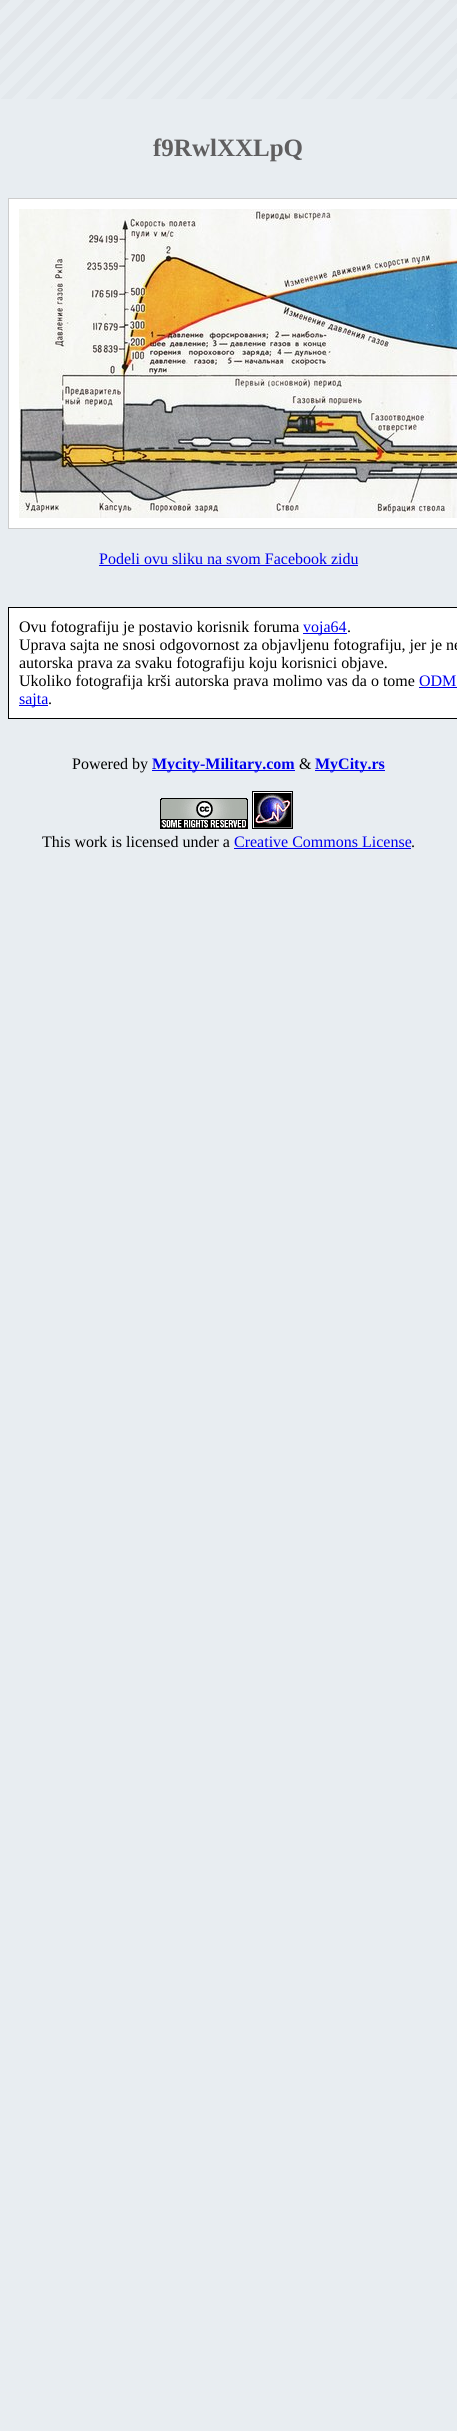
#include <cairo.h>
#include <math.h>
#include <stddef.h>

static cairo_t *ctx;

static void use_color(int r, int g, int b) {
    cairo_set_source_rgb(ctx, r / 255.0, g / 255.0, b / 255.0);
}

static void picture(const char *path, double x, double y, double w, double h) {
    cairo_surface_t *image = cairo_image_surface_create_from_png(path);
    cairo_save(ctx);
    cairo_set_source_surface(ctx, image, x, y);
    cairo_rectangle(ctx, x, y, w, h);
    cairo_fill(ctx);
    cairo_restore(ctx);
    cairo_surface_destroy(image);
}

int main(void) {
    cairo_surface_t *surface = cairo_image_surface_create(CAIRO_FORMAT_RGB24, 457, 2431);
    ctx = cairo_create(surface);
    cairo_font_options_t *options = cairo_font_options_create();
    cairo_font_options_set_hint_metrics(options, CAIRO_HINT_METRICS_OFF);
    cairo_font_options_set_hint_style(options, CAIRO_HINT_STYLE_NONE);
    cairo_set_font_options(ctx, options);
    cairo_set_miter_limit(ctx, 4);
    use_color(232, 237, 241);
    cairo_paint(ctx);
    picture("img1.png", 0, 0, 457, 99);
    cairo_select_font_face(ctx, "Liberation Serif", CAIRO_FONT_SLANT_NORMAL, CAIRO_FONT_WEIGHT_BOLD);
    cairo_set_font_size(ctx, 25);
    use_color(96, 95, 96);
    cairo_move_to(ctx, 153, 156);
    cairo_show_text(ctx, "f9RwlXXLpQ");
    use_color(255, 255, 255);
    cairo_rectangle(ctx, 8.5, 198.5, 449, 330);
    cairo_fill_preserve(ctx);
    use_color(204, 204, 204);
    cairo_set_line_width(ctx, 1);
    cairo_stroke(ctx);
    picture("img2.png", 19, 209, 438, 309);
    cairo_select_font_face(ctx, "Liberation Serif", CAIRO_FONT_SLANT_NORMAL, CAIRO_FONT_WEIGHT_NORMAL);
    cairo_set_font_size(ctx, 16);
    use_color(0, 0, 238);
    cairo_move_to(ctx, 99, 564);
    cairo_show_text(ctx, "Podeli ovu sliku na svom Facebook zidu");
    cairo_rectangle(ctx, 99, 565, 259, 1);
    cairo_fill(ctx);
    use_color(255, 255, 255);
    cairo_rectangle(ctx, 8.5, 607.5, 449, 111);
    cairo_fill_preserve(ctx);
    use_color(0, 0, 0);
    cairo_stroke(ctx);
    cairo_move_to(ctx, 19, 632);
    cairo_show_text(ctx, "Ovu fotografiju je postavio korisnik foruma");
    use_color(0, 0, 238);
    cairo_rectangle(ctx, 303, 633, 44, 1);
    cairo_fill(ctx);
    cairo_move_to(ctx, 303, 632);
    cairo_show_text(ctx, "voja64");
    use_color(0, 0, 0);
    cairo_move_to(ctx, 347, 632);
    cairo_show_text(ctx, ".");
    cairo_move_to(ctx, 19, 650);
    cairo_show_text(ctx, "Uprava sajta ne snosi odgovornost za objavljenu fotografiju, jer je ne");
    cairo_move_to(ctx, 19, 668);
    cairo_show_text(ctx, "autorska prava za svaku fotografiju koju korisnici objave.");
    cairo_move_to(ctx, 19, 686);
    cairo_show_text(ctx, "Ukoliko fotografija krši autorska prava molimo vas da o tome");
    use_color(0, 0, 238);
    cairo_move_to(ctx, 419, 686);
    cairo_show_text(ctx, "ODM");
    cairo_rectangle(ctx, 419, 687, 38, 1);
    cairo_fill(ctx);
    cairo_rectangle(ctx, 19, 705, 29, 1);
    cairo_fill(ctx);
    cairo_move_to(ctx, 19, 704);
    cairo_show_text(ctx, "sajta");
    use_color(0, 0, 0);
    cairo_move_to(ctx, 48, 704);
    cairo_show_text(ctx, ".");
    cairo_move_to(ctx, 72, 769);
    cairo_show_text(ctx, "Powered by");
    use_color(0, 0, 238);
    cairo_rectangle(ctx, 152, 770, 143, 1);
    cairo_fill(ctx);
    cairo_select_font_face(ctx, "Liberation Serif", CAIRO_FONT_SLANT_NORMAL, CAIRO_FONT_WEIGHT_BOLD);
    cairo_move_to(ctx, 152, 769);
    cairo_show_text(ctx, "Mycity-Military.com");
    cairo_select_font_face(ctx, "Liberation Serif", CAIRO_FONT_SLANT_NORMAL, CAIRO_FONT_WEIGHT_NORMAL);
    use_color(0, 0, 0);
    cairo_move_to(ctx, 299, 769);
    cairo_show_text(ctx, "&");
    use_color(0, 0, 238);
    cairo_rectangle(ctx, 315, 770, 70, 1);
    cairo_fill(ctx);
    cairo_select_font_face(ctx, "Liberation Serif", CAIRO_FONT_SLANT_NORMAL, CAIRO_FONT_WEIGHT_BOLD);
    cairo_move_to(ctx, 315, 769);
    cairo_show_text(ctx, "MyCity.rs");
    picture("img3.png", 160, 798, 88, 31);
    picture("img4.png", 252, 791, 41, 38);
    cairo_select_font_face(ctx, "Liberation Serif", CAIRO_FONT_SLANT_NORMAL, CAIRO_FONT_WEIGHT_NORMAL);
    use_color(0, 0, 0);
    cairo_move_to(ctx, 42, 847);
    cairo_show_text(ctx, "This work is licensed under a");
    use_color(0, 0, 238);
    cairo_move_to(ctx, 234, 847);
    cairo_show_text(ctx, "Creative Commons License");
    use_color(0, 0, 0);
    cairo_move_to(ctx, 411, 847);
    cairo_show_text(ctx, ".");
    use_color(0, 0, 238);
    cairo_rectangle(ctx, 234, 848, 177, 1);
    cairo_fill(ctx);
    cairo_surface_write_to_png(surface, "result.png");
    cairo_font_options_destroy(options);
    cairo_destroy(ctx);
    cairo_surface_destroy(surface);
    return 0;
}
